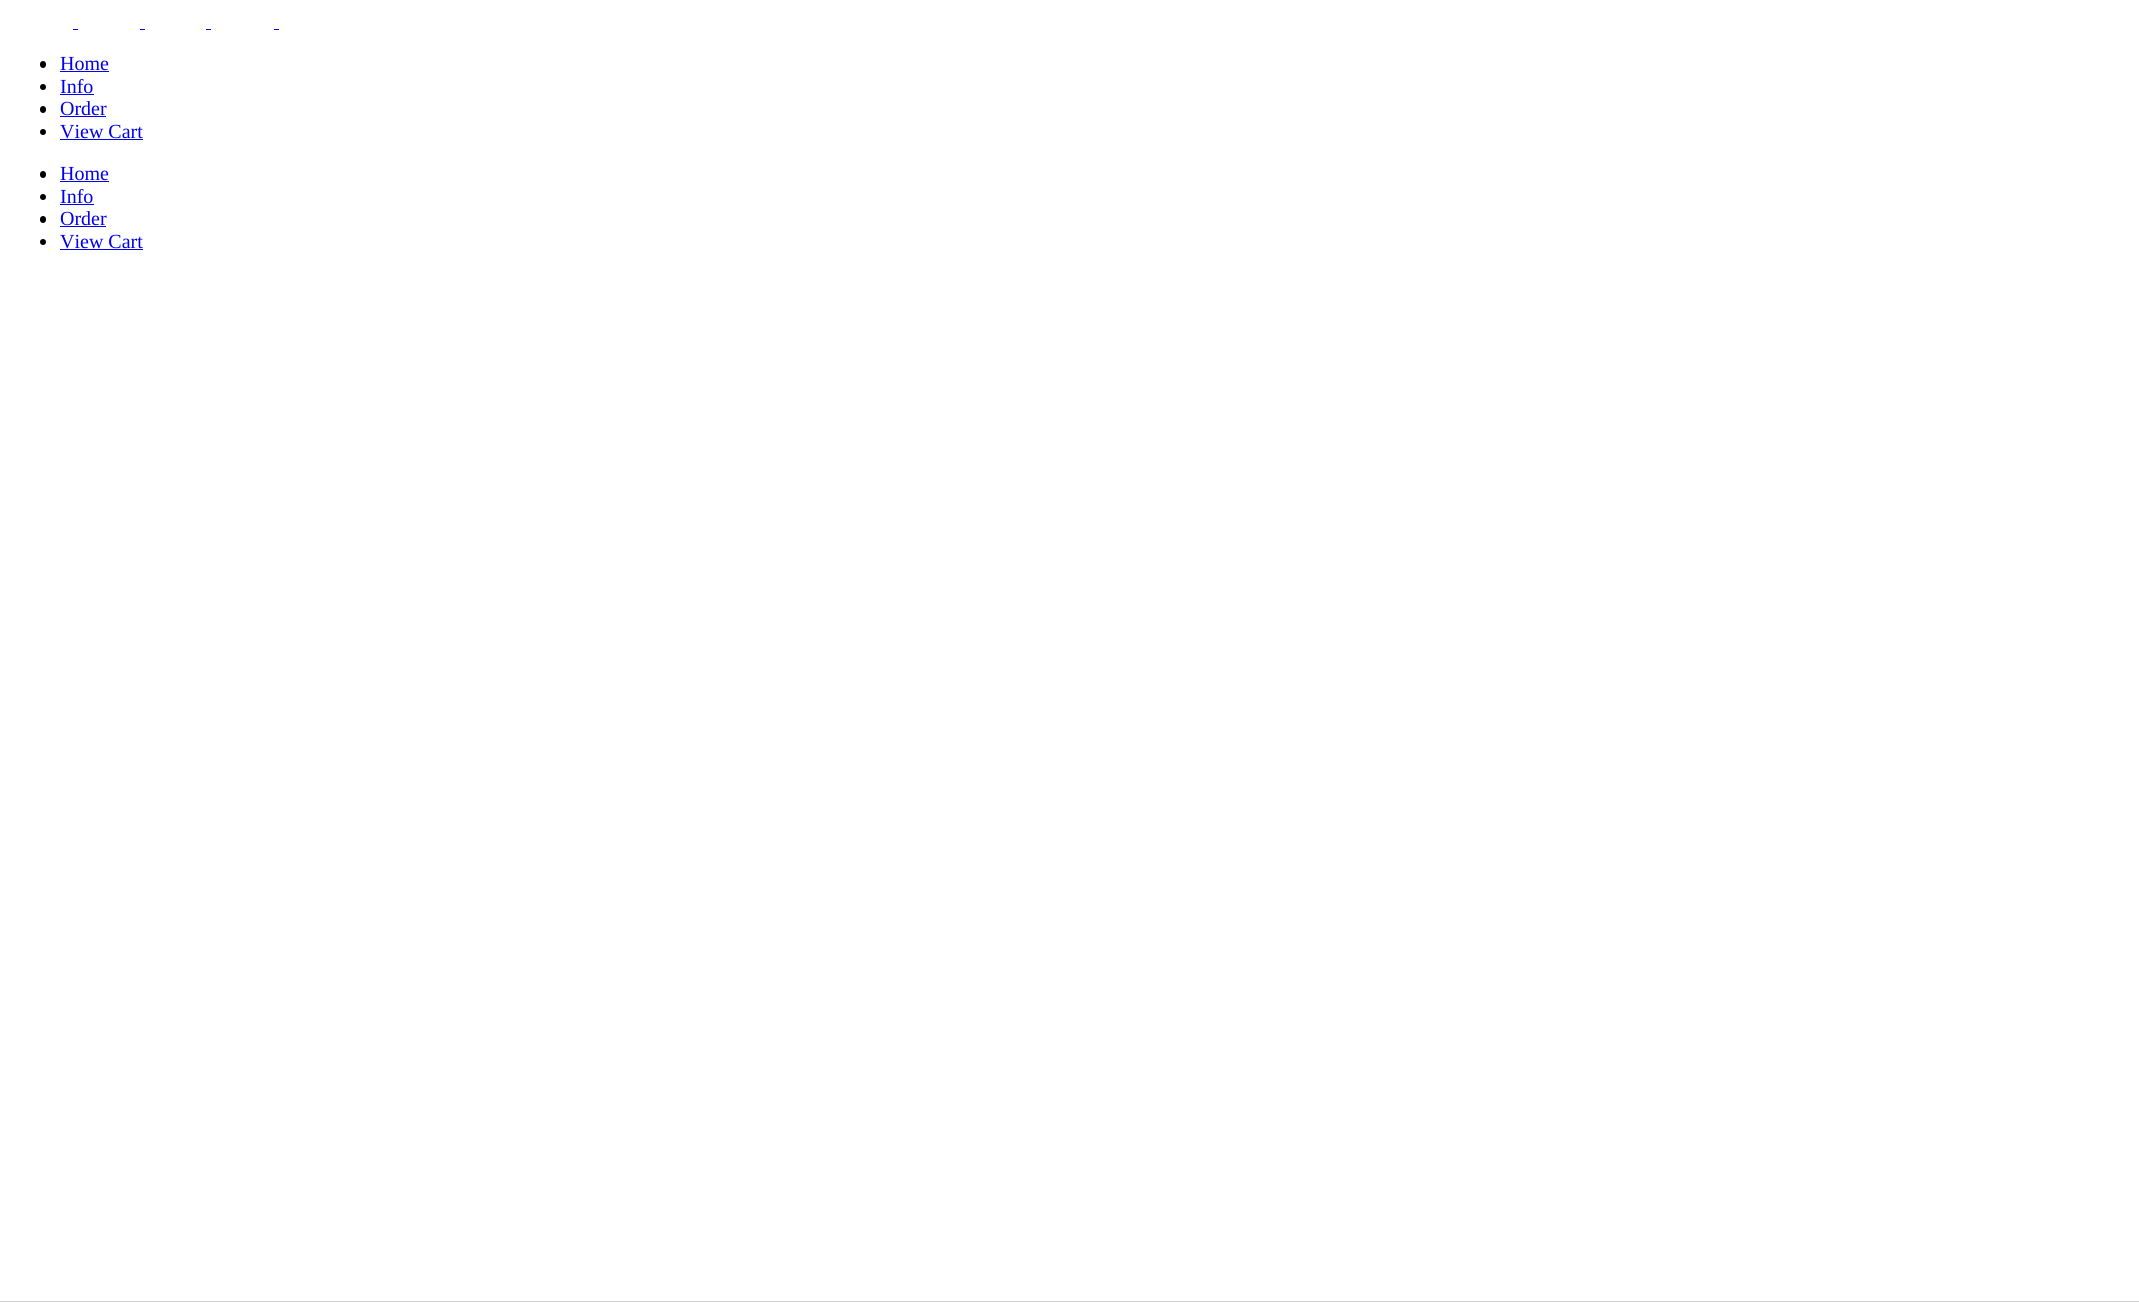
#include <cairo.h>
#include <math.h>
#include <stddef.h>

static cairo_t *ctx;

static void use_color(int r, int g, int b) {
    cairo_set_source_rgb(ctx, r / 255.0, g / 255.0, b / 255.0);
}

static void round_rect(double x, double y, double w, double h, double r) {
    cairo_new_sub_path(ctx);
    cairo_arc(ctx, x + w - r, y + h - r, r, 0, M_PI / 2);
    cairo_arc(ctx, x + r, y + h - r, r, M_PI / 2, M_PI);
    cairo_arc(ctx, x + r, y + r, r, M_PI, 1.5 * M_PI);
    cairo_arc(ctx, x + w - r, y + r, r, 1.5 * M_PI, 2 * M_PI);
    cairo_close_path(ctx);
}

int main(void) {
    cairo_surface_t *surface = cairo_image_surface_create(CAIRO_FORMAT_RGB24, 2139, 1302);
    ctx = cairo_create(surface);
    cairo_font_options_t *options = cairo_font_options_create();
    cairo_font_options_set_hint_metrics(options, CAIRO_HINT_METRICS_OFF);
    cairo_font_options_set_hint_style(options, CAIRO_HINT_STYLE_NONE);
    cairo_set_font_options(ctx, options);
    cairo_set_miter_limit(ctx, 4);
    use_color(255, 255, 255);
    cairo_paint(ctx);
    use_color(0, 0, 238);
    cairo_rectangle(ctx, 73, 29, 5, 1);
    cairo_fill(ctx);
    cairo_rectangle(ctx, 140, 29, 5, 1);
    cairo_fill(ctx);
    cairo_rectangle(ctx, 206, 29, 5, 1);
    cairo_fill(ctx);
    cairo_rectangle(ctx, 274, 29, 5, 1);
    cairo_fill(ctx);
    use_color(0, 0, 0);
    round_rect(40, 61, 6, 7, 3);
    cairo_fill(ctx);
    cairo_select_font_face(ctx, "Liberation Serif", CAIRO_FONT_SLANT_NORMAL, CAIRO_FONT_WEIGHT_NORMAL);
    cairo_set_font_size(ctx, 20);
    use_color(0, 0, 238);
    cairo_move_to(ctx, 60, 70);
    cairo_show_text(ctx, "Home");
    cairo_rectangle(ctx, 60, 71, 49, 1);
    cairo_fill(ctx);
    use_color(0, 0, 0);
    cairo_arc(ctx, 43, 87, 3, 0, 2 * M_PI);
    cairo_fill(ctx);
    use_color(0, 0, 238);
    cairo_move_to(ctx, 60, 93);
    cairo_show_text(ctx, "Info");
    cairo_rectangle(ctx, 60, 94, 34, 1);
    cairo_fill(ctx);
    use_color(0, 0, 0);
    round_rect(40, 106, 6, 7, 3);
    cairo_fill(ctx);
    use_color(0, 0, 238);
    cairo_move_to(ctx, 60, 115);
    cairo_show_text(ctx, "Order");
    cairo_rectangle(ctx, 60, 116, 46, 1);
    cairo_fill(ctx);
    use_color(0, 0, 0);
    cairo_arc(ctx, 43, 132, 3, 0, 2 * M_PI);
    cairo_fill(ctx);
    use_color(0, 0, 238);
    cairo_move_to(ctx, 60, 138);
    cairo_show_text(ctx, "View Cart");
    cairo_rectangle(ctx, 60, 139, 83, 1);
    cairo_fill(ctx);
    use_color(0, 0, 0);
    round_rect(40, 171, 6, 7, 3);
    cairo_fill(ctx);
    use_color(0, 0, 238);
    cairo_move_to(ctx, 60, 180);
    cairo_show_text(ctx, "Home");
    cairo_rectangle(ctx, 60, 181, 49, 1);
    cairo_fill(ctx);
    use_color(0, 0, 0);
    cairo_arc(ctx, 43, 197, 3, 0, 2 * M_PI);
    cairo_fill(ctx);
    use_color(0, 0, 238);
    cairo_move_to(ctx, 60, 203);
    cairo_show_text(ctx, "Info");
    cairo_rectangle(ctx, 60, 204, 34, 1);
    cairo_fill(ctx);
    use_color(0, 0, 0);
    round_rect(40, 216, 6, 7, 3);
    cairo_fill(ctx);
    use_color(0, 0, 238);
    cairo_move_to(ctx, 60, 225);
    cairo_show_text(ctx, "Order");
    cairo_rectangle(ctx, 60, 226, 46, 1);
    cairo_fill(ctx);
    use_color(0, 0, 0);
    cairo_arc(ctx, 43, 242, 3, 0, 2 * M_PI);
    cairo_fill(ctx);
    use_color(0, 0, 238);
    cairo_move_to(ctx, 60, 248);
    cairo_show_text(ctx, "View Cart");
    cairo_rectangle(ctx, 60, 249, 83, 1);
    cairo_fill(ctx);
    use_color(206, 206, 206);
    cairo_rectangle(ctx, 0, 1301, 2139, 1);
    cairo_fill(ctx);
    cairo_surface_write_to_png(surface, "result.png");
    cairo_font_options_destroy(options);
    cairo_destroy(ctx);
    cairo_surface_destroy(surface);
    return 0;
}
